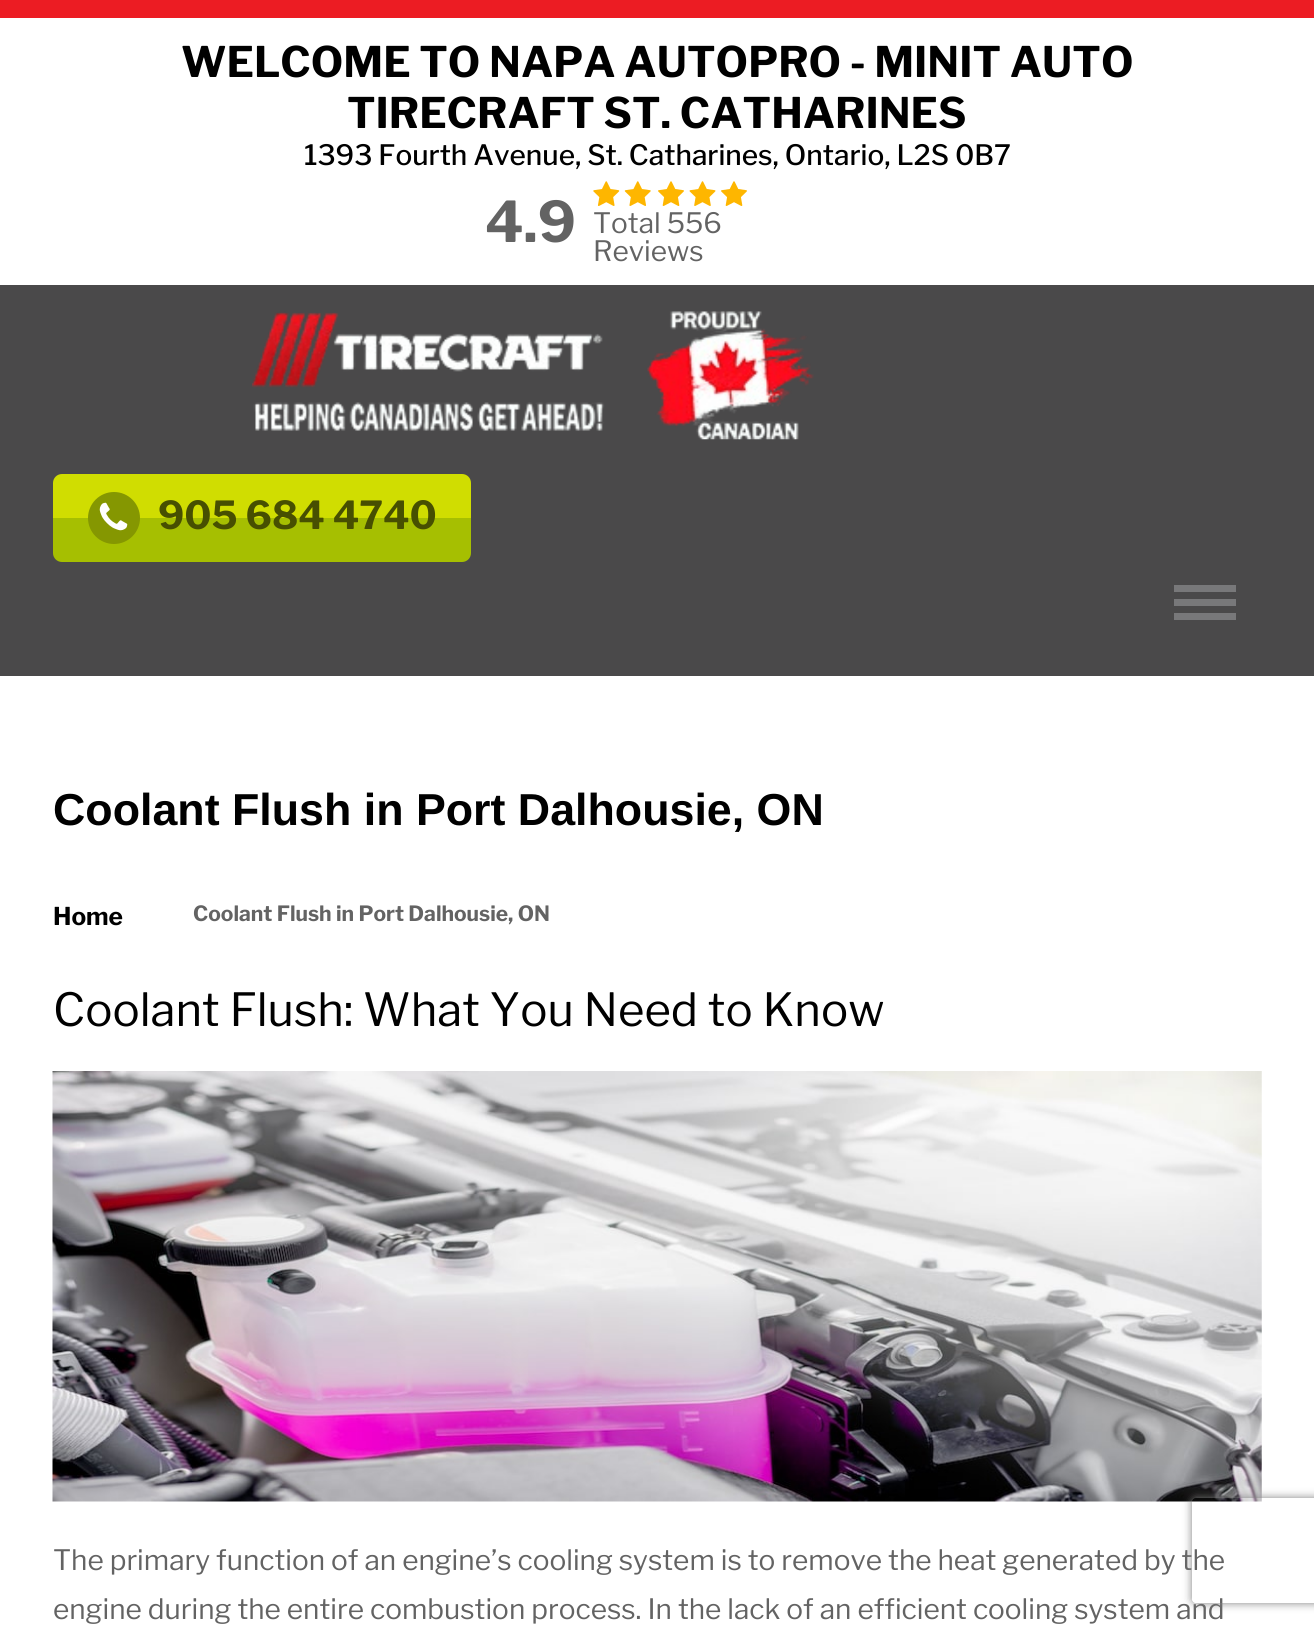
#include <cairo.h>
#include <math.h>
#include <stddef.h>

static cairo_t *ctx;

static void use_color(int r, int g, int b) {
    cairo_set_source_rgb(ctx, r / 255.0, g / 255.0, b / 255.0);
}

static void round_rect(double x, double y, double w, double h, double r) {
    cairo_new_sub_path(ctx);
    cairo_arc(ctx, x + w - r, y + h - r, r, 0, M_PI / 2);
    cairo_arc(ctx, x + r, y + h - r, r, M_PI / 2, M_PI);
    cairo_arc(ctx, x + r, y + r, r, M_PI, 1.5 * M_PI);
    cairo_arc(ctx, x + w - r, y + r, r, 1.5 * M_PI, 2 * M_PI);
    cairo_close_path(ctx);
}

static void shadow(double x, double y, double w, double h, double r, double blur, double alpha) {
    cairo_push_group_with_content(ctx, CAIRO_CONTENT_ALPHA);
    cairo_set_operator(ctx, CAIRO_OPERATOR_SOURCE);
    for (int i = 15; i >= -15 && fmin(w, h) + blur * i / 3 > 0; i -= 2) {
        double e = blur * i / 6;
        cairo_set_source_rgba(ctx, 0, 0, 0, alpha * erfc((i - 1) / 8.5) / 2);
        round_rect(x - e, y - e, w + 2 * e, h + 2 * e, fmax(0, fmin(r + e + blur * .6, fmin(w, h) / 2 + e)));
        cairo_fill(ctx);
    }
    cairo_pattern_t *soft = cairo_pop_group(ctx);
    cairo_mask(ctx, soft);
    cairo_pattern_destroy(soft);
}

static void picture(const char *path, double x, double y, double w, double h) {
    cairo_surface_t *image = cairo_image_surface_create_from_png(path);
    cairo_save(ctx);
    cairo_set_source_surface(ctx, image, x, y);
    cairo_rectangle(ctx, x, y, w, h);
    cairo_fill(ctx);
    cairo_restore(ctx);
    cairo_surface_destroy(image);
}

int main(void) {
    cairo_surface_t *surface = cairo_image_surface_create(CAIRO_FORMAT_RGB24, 1314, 1627);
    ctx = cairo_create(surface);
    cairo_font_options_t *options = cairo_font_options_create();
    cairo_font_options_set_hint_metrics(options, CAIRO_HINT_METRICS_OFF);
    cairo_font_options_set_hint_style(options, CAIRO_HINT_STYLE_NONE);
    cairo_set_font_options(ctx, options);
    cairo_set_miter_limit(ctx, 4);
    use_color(255, 255, 255);
    cairo_paint(ctx);
    use_color(236, 28, 35);
    cairo_rectangle(ctx, 0, 0, 1314, 18);
    cairo_fill(ctx);
    cairo_select_font_face(ctx, "Libre Franklin", CAIRO_FONT_SLANT_NORMAL, CAIRO_FONT_WEIGHT_BOLD);
    cairo_set_font_size(ctx, 42);
    use_color(0, 0, 0);
    cairo_move_to(ctx, 181, 77);
    cairo_show_text(ctx, "WELCOME TO NAPA AUTOPRO - MINIT AUTO");
    cairo_move_to(ctx, 347, 128);
    cairo_show_text(ctx, "TIRECRAFT ST. CATHARINES");
    cairo_select_font_face(ctx, "Libre Franklin Medium", CAIRO_FONT_SLANT_NORMAL, CAIRO_FONT_WEIGHT_NORMAL);
    cairo_set_font_size(ctx, 28);
    cairo_move_to(ctx, 304, 165);
    cairo_show_text(ctx, "1393 Fourth Avenue, St. Catharines, Ontario, L2S 0B7");
    cairo_select_font_face(ctx, "Libre Franklin", CAIRO_FONT_SLANT_NORMAL, CAIRO_FONT_WEIGHT_BOLD);
    cairo_set_font_size(ctx, 56);
    use_color(99, 99, 99);
    cairo_move_to(ctx, 485, 242);
    cairo_show_text(ctx, "4.9");
    picture("img1.png", 593, 181, 27, 25);
    picture("img2.png", 624, 181, 27, 25);
    picture("img3.png", 658, 181, 26, 25);
    picture("img4.png", 689, 181, 27, 25);
    picture("img3.png", 721, 181, 26, 25);
    cairo_select_font_face(ctx, "Libre Franklin", CAIRO_FONT_SLANT_NORMAL, CAIRO_FONT_WEIGHT_NORMAL);
    cairo_set_font_size(ctx, 28);
    cairo_move_to(ctx, 593, 233);
    cairo_show_text(ctx, "Total 556");
    cairo_move_to(ctx, 593, 261);
    cairo_show_text(ctx, "Reviews");
    use_color(74, 73, 74);
    cairo_rectangle(ctx, 0, 285, 1314, 391);
    cairo_fill(ctx);
    picture("img5.png", 252, 311, 562, 129);
    use_color(208, 221, 1);
    cairo_new_path(ctx);
    cairo_move_to(ctx, 62, 474);
    cairo_line_to(ctx, 462, 474);
    cairo_curve_to(ctx, 467, 474, 471, 478, 471, 483);
    cairo_line_to(ctx, 471, 518);
    cairo_line_to(ctx, 53, 518);
    cairo_line_to(ctx, 53, 483);
    cairo_curve_to(ctx, 53, 478, 57, 474, 62, 474);
    cairo_close_path(ctx);
    cairo_fill(ctx);
    use_color(166, 191, 1);
    cairo_new_path(ctx);
    cairo_move_to(ctx, 53, 518);
    cairo_line_to(ctx, 471, 518);
    cairo_line_to(ctx, 471, 553);
    cairo_curve_to(ctx, 471, 558, 467, 562, 462, 562);
    cairo_line_to(ctx, 62, 562);
    cairo_curve_to(ctx, 57, 562, 53, 558, 53, 553);
    cairo_close_path(ctx);
    cairo_fill(ctx);
    use_color(133, 151, 1);
    cairo_arc(ctx, 114, 518, 26, 0, 2 * M_PI);
    cairo_fill(ctx);
    picture("img6.png", 99, 502, 29, 29);
    cairo_select_font_face(ctx, "Libre Franklin", CAIRO_FONT_SLANT_NORMAL, CAIRO_FONT_WEIGHT_BOLD);
    cairo_set_font_size(ctx, 38.5);
    use_color(71, 79, 1);
    cairo_move_to(ctx, 158, 529);
    cairo_show_text(ctx, "905 684 4740");
    use_color(120, 120, 122);
    cairo_rectangle(ctx, 1174, 585, 62, 7);
    cairo_fill(ctx);
    cairo_rectangle(ctx, 1174, 599, 62, 7);
    cairo_fill(ctx);
    cairo_rectangle(ctx, 1174, 613, 62, 7);
    cairo_fill(ctx);
    cairo_select_font_face(ctx, "Liberation Sans", CAIRO_FONT_SLANT_NORMAL, CAIRO_FONT_WEIGHT_BOLD);
    cairo_set_font_size(ctx, 44.75);
    use_color(0, 0, 0);
    cairo_move_to(ctx, 53, 825);
    cairo_show_text(ctx, "Coolant Flush in Port Dalhousie, ON");
    cairo_select_font_face(ctx, "Libre Franklin", CAIRO_FONT_SLANT_NORMAL, CAIRO_FONT_WEIGHT_BOLD);
    cairo_set_font_size(ctx, 24.5);
    cairo_move_to(ctx, 53, 925);
    cairo_show_text(ctx, "Home");
    cairo_set_font_size(ctx, 21);
    use_color(99, 99, 99);
    cairo_move_to(ctx, 193, 921);
    cairo_show_text(ctx, "Coolant Flush in Port Dalhousie, ON");
    cairo_select_font_face(ctx, "Libre Franklin", CAIRO_FONT_SLANT_NORMAL, CAIRO_FONT_WEIGHT_NORMAL);
    cairo_set_font_size(ctx, 45.5);
    use_color(0, 0, 0);
    cairo_move_to(ctx, 53, 1026);
    cairo_show_text(ctx, "Coolant Flush: What You Need to Know");
    picture("img7.png", 52, 1071, 1210, 431);
    cairo_set_font_size(ctx, 28);
    use_color(99, 99, 99);
    cairo_move_to(ctx, 53, 1570);
    cairo_show_text(ctx, "The primary function of an engine’s cooling system is to remove the heat generated by the");
    cairo_move_to(ctx, 53, 1619);
    cairo_show_text(ctx, "engine during the entire combustion process. In the lack of an efficient cooling system and");
    cairo_save(ctx);
    cairo_set_fill_rule(ctx, CAIRO_FILL_RULE_EVEN_ODD);
    cairo_new_path(ctx);
    cairo_move_to(ctx, 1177, 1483);
    cairo_line_to(ctx, 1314, 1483);
    cairo_line_to(ctx, 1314, 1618);
    cairo_line_to(ctx, 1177, 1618);
    cairo_close_path(ctx);
    cairo_move_to(ctx, 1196, 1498);
    cairo_line_to(ctx, 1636, 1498);
    cairo_curve_to(ctx, 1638, 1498, 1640, 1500, 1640, 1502);
    cairo_line_to(ctx, 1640, 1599);
    cairo_curve_to(ctx, 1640, 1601, 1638, 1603, 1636, 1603);
    cairo_line_to(ctx, 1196, 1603);
    cairo_curve_to(ctx, 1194, 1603, 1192, 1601, 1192, 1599);
    cairo_line_to(ctx, 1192, 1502);
    cairo_curve_to(ctx, 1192, 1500, 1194, 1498, 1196, 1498);
    cairo_close_path(ctx);
    cairo_clip(ctx);
    use_color(128, 128, 128);
    shadow(1192, 1498, 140, 105, 4, 4.5, 1);
    cairo_restore(ctx);
    cairo_surface_write_to_png(surface, "result.png");
    cairo_font_options_destroy(options);
    cairo_destroy(ctx);
    cairo_surface_destroy(surface);
    return 0;
}
